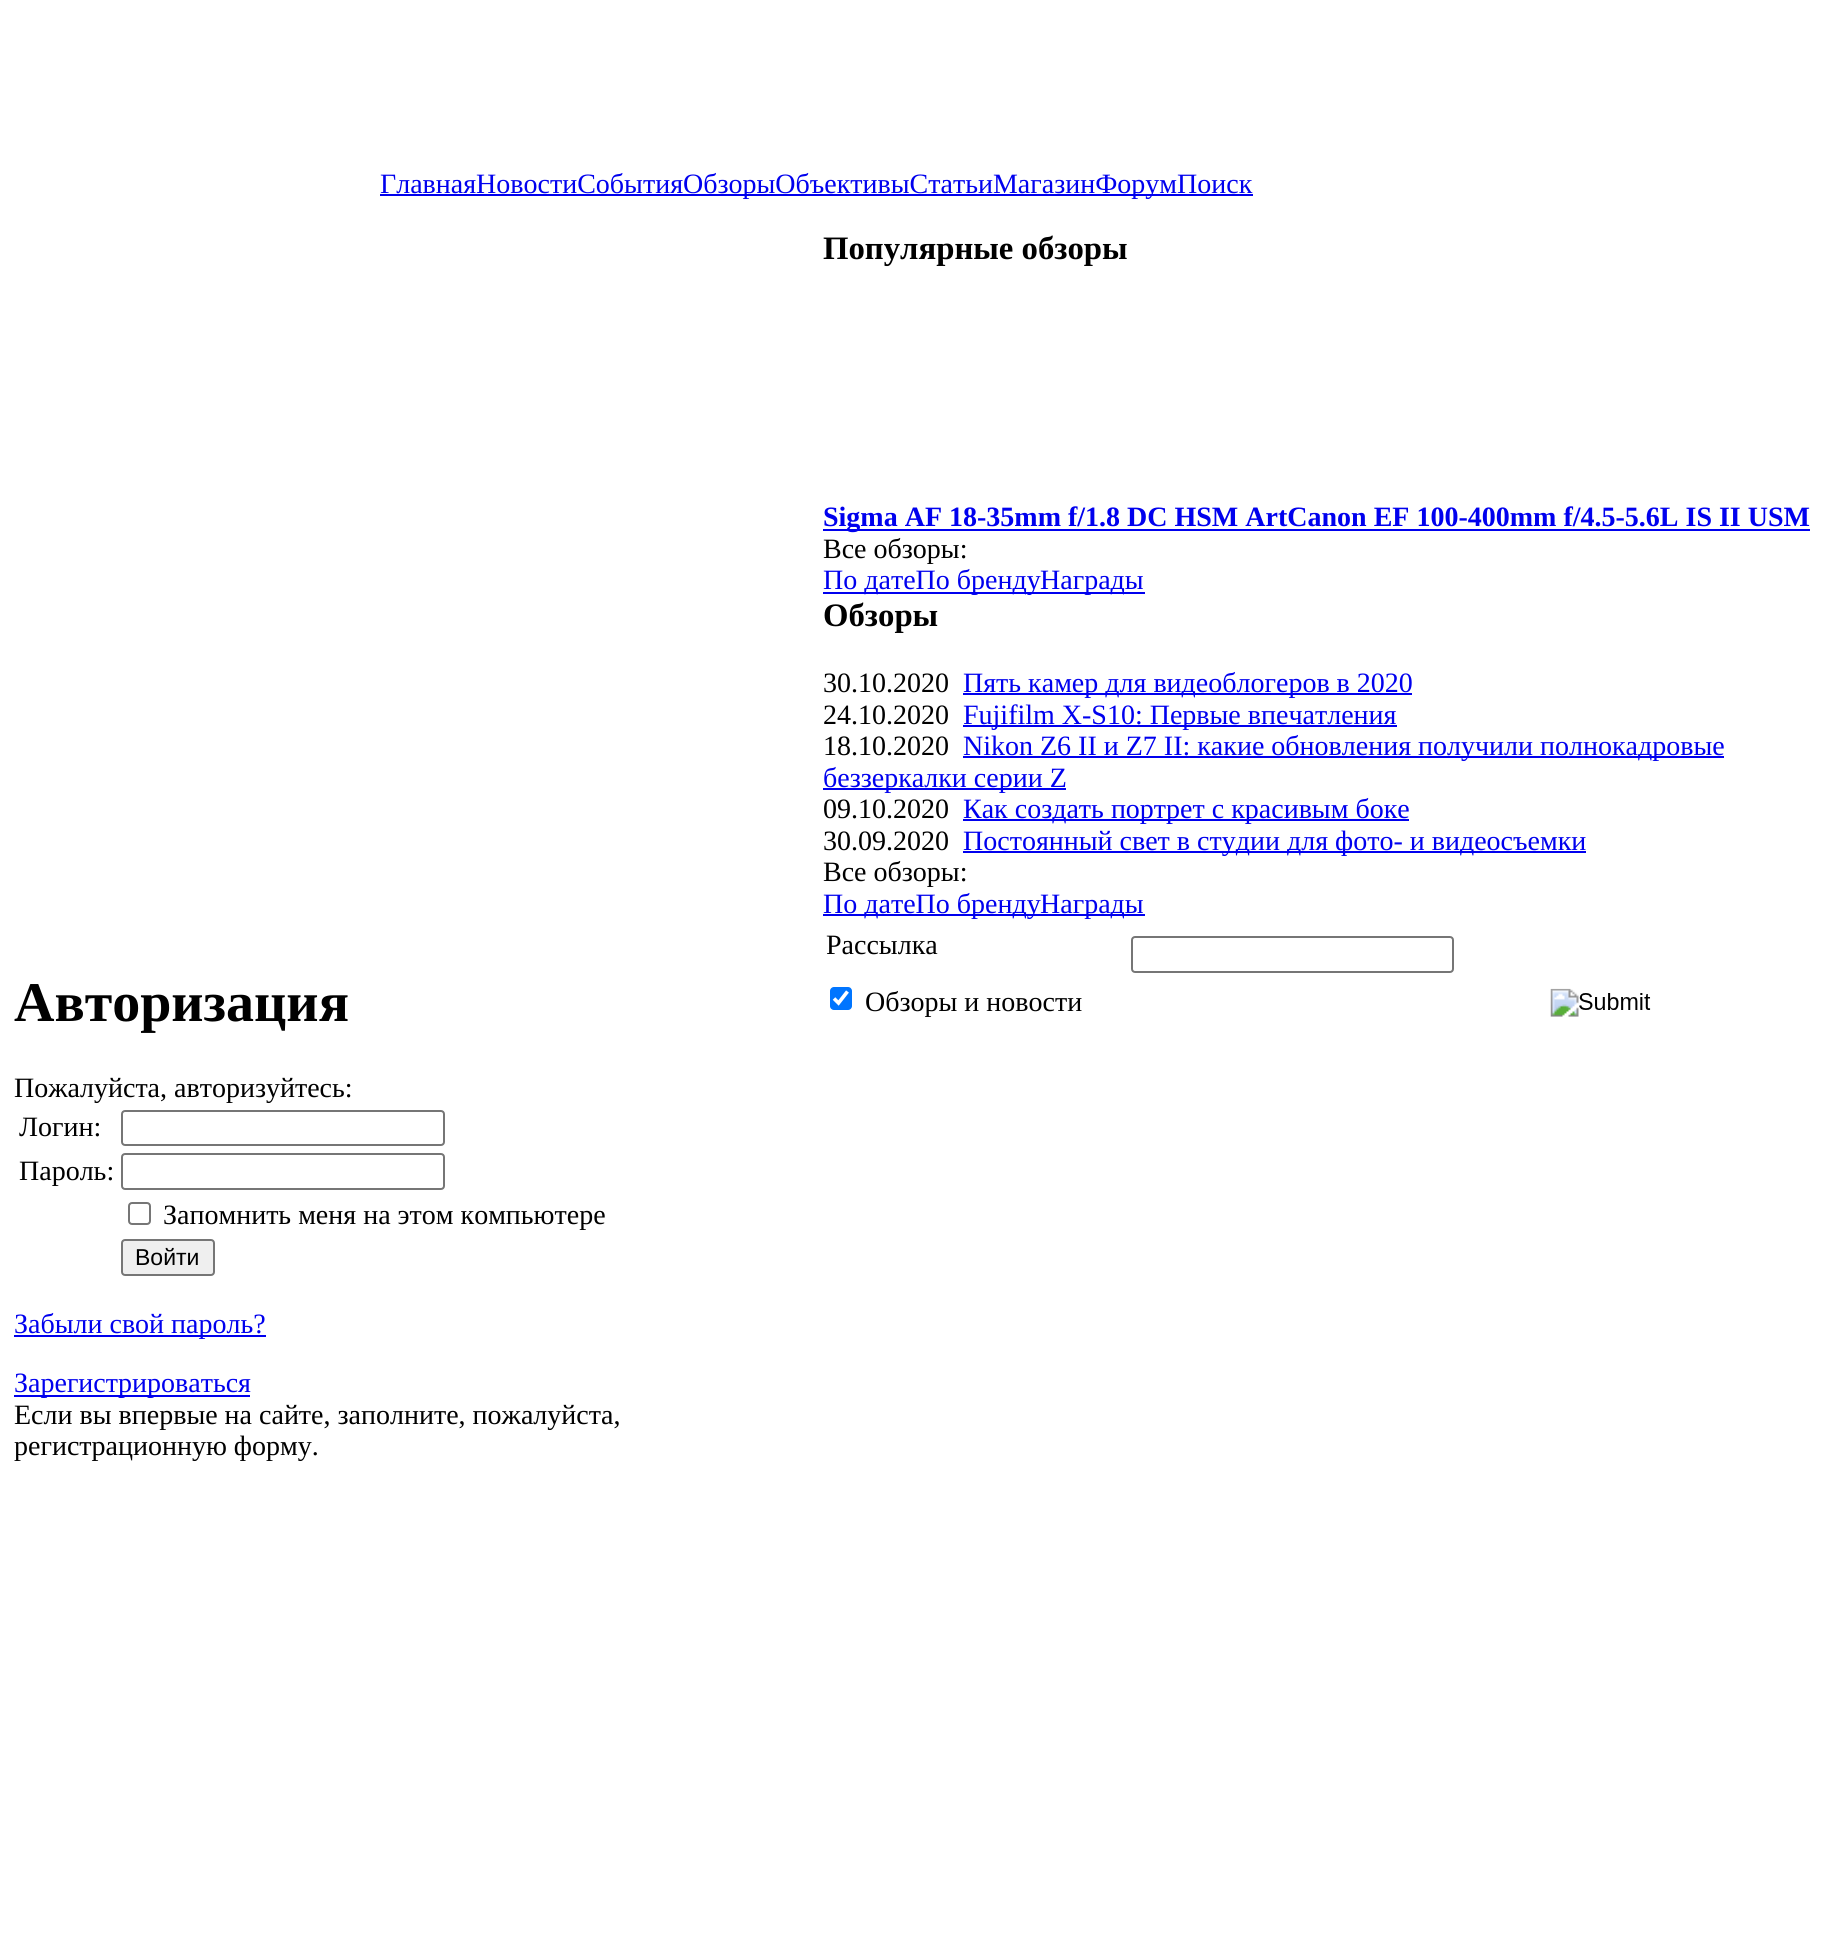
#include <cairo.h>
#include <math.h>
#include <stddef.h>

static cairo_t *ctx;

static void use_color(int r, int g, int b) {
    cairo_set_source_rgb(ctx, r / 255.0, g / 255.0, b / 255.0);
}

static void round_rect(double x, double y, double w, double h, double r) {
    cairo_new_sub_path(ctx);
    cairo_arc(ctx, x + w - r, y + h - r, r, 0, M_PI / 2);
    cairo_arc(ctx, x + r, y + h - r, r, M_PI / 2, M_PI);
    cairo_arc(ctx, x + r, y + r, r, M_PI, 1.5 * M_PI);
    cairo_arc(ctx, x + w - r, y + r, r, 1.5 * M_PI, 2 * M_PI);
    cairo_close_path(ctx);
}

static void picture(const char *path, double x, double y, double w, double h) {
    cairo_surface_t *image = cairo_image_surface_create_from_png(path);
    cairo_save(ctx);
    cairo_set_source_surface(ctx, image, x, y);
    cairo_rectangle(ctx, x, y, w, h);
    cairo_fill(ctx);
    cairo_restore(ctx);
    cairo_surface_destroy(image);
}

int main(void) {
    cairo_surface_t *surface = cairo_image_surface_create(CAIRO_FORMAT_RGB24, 1846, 1952);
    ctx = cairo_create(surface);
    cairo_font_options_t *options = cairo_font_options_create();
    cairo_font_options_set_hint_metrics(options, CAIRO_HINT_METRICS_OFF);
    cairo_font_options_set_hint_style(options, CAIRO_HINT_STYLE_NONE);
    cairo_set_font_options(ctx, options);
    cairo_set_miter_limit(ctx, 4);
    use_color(255, 255, 255);
    cairo_paint(ctx);
    use_color(0, 0, 238);
    cairo_rectangle(ctx, 380, 194, 873, 2);
    cairo_fill(ctx);
    cairo_select_font_face(ctx, "Liberation Serif", CAIRO_FONT_SLANT_NORMAL, CAIRO_FONT_WEIGHT_NORMAL);
    cairo_set_font_size(ctx, 28);
    cairo_move_to(ctx, 380, 193);
    cairo_show_text(ctx, "ГлавнаяНовостиСобытияОбзорыОбъективыСтатьиМагазинФорумПоиск");
    cairo_select_font_face(ctx, "Liberation Serif", CAIRO_FONT_SLANT_NORMAL, CAIRO_FONT_WEIGHT_BOLD);
    cairo_set_font_size(ctx, 32.75);
    use_color(0, 0, 0);
    cairo_move_to(ctx, 823, 259);
    cairo_show_text(ctx, "Популярные обзоры");
    use_color(0, 0, 238);
    cairo_rectangle(ctx, 823, 529, 463, 2);
    cairo_fill(ctx);
    cairo_set_font_size(ctx, 28);
    cairo_move_to(ctx, 823, 526);
    cairo_show_text(ctx, "Sigma AF 18-35mm f/1.8 DC HSM ArtCanon EF 100-400mm f/4.5-5.6L IS II USM");
    cairo_rectangle(ctx, 1286, 529, 524, 2);
    cairo_fill(ctx);
    cairo_select_font_face(ctx, "Liberation Serif", CAIRO_FONT_SLANT_NORMAL, CAIRO_FONT_WEIGHT_NORMAL);
    use_color(0, 0, 0);
    cairo_move_to(ctx, 823, 558);
    cairo_show_text(ctx, "Все обзоры:");
    use_color(0, 0, 238);
    cairo_rectangle(ctx, 823, 592, 217, 2);
    cairo_fill(ctx);
    cairo_move_to(ctx, 823, 589);
    cairo_show_text(ctx, "По датеПо бренду");
    cairo_rectangle(ctx, 1040, 592, 105, 2);
    cairo_fill(ctx);
    cairo_move_to(ctx, 1040, 589);
    cairo_show_text(ctx, "Награды");
    cairo_select_font_face(ctx, "Liberation Serif", CAIRO_FONT_SLANT_NORMAL, CAIRO_FONT_WEIGHT_BOLD);
    cairo_set_font_size(ctx, 32.75);
    use_color(0, 0, 0);
    cairo_move_to(ctx, 823, 626);
    cairo_show_text(ctx, "Обзоры");
    cairo_select_font_face(ctx, "Liberation Serif", CAIRO_FONT_SLANT_NORMAL, CAIRO_FONT_WEIGHT_NORMAL);
    cairo_set_font_size(ctx, 28);
    cairo_move_to(ctx, 823, 692);
    cairo_show_text(ctx, "30.10.2020");
    use_color(0, 0, 238);
    cairo_rectangle(ctx, 963, 693, 449, 2);
    cairo_fill(ctx);
    cairo_move_to(ctx, 963, 692);
    cairo_show_text(ctx, "Пять камер для видеоблогеров в 2020");
    use_color(0, 0, 0);
    cairo_move_to(ctx, 823, 724);
    cairo_show_text(ctx, "24.10.2020");
    use_color(0, 0, 238);
    cairo_rectangle(ctx, 963, 725, 434, 2);
    cairo_fill(ctx);
    cairo_move_to(ctx, 963, 724);
    cairo_show_text(ctx, "Fujifilm X-S10: Первые впечатления");
    use_color(0, 0, 0);
    cairo_move_to(ctx, 823, 755);
    cairo_show_text(ctx, "18.10.2020");
    use_color(0, 0, 238);
    cairo_rectangle(ctx, 963, 756, 761, 2);
    cairo_fill(ctx);
    cairo_move_to(ctx, 963, 755);
    cairo_show_text(ctx, "Nikon Z6 II и Z7 II: какие обновления получили полнокадровые");
    cairo_rectangle(ctx, 823, 788, 243, 2);
    cairo_fill(ctx);
    cairo_move_to(ctx, 823, 787);
    cairo_show_text(ctx, "беззеркалки серии Z");
    use_color(0, 0, 0);
    cairo_move_to(ctx, 823, 818);
    cairo_show_text(ctx, "09.10.2020");
    use_color(0, 0, 238);
    cairo_rectangle(ctx, 963, 819, 446, 2);
    cairo_fill(ctx);
    cairo_move_to(ctx, 963, 818);
    cairo_show_text(ctx, "Как создать портрет с красивым боке");
    use_color(0, 0, 0);
    cairo_move_to(ctx, 823, 850);
    cairo_show_text(ctx, "30.09.2020");
    use_color(0, 0, 238);
    cairo_rectangle(ctx, 963, 851, 623, 2);
    cairo_fill(ctx);
    cairo_move_to(ctx, 963, 850);
    cairo_show_text(ctx, "Постоянный свет в студии для фото- и видеосъемки");
    use_color(0, 0, 0);
    cairo_move_to(ctx, 823, 881);
    cairo_show_text(ctx, "Все обзоры:");
    use_color(0, 0, 238);
    cairo_rectangle(ctx, 823, 914, 217, 2);
    cairo_fill(ctx);
    cairo_move_to(ctx, 823, 913);
    cairo_show_text(ctx, "По датеПо бренду");
    cairo_rectangle(ctx, 1040, 914, 105, 2);
    cairo_fill(ctx);
    cairo_move_to(ctx, 1040, 913);
    cairo_show_text(ctx, "Награды");
    use_color(0, 0, 0);
    cairo_move_to(ctx, 826, 954);
    cairo_show_text(ctx, "Рассылка");
    round_rect(1132, 937, 321, 35, 3);
    use_color(118, 118, 118);
    cairo_stroke(ctx);
    use_color(0, 117, 255);
    round_rect(830, 987, 22, 23, 4);
    cairo_fill(ctx);
    cairo_new_path(ctx);
    cairo_move_to(ctx, 834, 998.5);
    cairo_line_to(ctx, 838.5, 1003);
    cairo_line_to(ctx, 847.5, 991.5);
    use_color(255, 255, 255);
    cairo_set_line_width(ctx, 3.6);
    cairo_stroke(ctx);
    use_color(0, 0, 0);
    cairo_move_to(ctx, 865, 1011);
    cairo_show_text(ctx, "Обзоры и новости");
    picture("img1.png", 1550, 988, 101, 29);
    cairo_select_font_face(ctx, "Liberation Serif", CAIRO_FONT_SLANT_NORMAL, CAIRO_FONT_WEIGHT_BOLD);
    cairo_set_font_size(ctx, 56);
    cairo_move_to(ctx, 14, 1021);
    cairo_show_text(ctx, "Авторизация");
    cairo_select_font_face(ctx, "Liberation Serif", CAIRO_FONT_SLANT_NORMAL, CAIRO_FONT_WEIGHT_NORMAL);
    cairo_set_font_size(ctx, 28);
    cairo_move_to(ctx, 14, 1097);
    cairo_show_text(ctx, "Пожалуйста, авторизуйтесь:");
    cairo_move_to(ctx, 19, 1136);
    cairo_show_text(ctx, "Логин:");
    round_rect(122, 1111, 322, 34, 3);
    use_color(118, 118, 118);
    cairo_set_line_width(ctx, 2);
    cairo_stroke(ctx);
    use_color(0, 0, 0);
    cairo_move_to(ctx, 19, 1180);
    cairo_show_text(ctx, "Пароль:");
    round_rect(122, 1154, 322, 35, 3);
    use_color(118, 118, 118);
    cairo_stroke(ctx);
    round_rect(129, 1203, 21, 21, 3);
    cairo_stroke(ctx);
    use_color(0, 0, 0);
    cairo_move_to(ctx, 163, 1224);
    cairo_show_text(ctx, "Запомнить меня на этом компьютере");
    use_color(239, 239, 239);
    round_rect(122, 1240, 92, 35, 3);
    cairo_fill_preserve(ctx);
    use_color(118, 118, 118);
    cairo_stroke(ctx);
    cairo_select_font_face(ctx, "Liberation Sans", CAIRO_FONT_SLANT_NORMAL, CAIRO_FONT_WEIGHT_NORMAL);
    cairo_set_font_size(ctx, 23);
    use_color(0, 0, 0);
    cairo_move_to(ctx, 135, 1265);
    cairo_show_text(ctx, "Войти");
    use_color(0, 0, 238);
    cairo_rectangle(ctx, 14, 1335, 252, 2);
    cairo_fill(ctx);
    cairo_select_font_face(ctx, "Liberation Serif", CAIRO_FONT_SLANT_NORMAL, CAIRO_FONT_WEIGHT_NORMAL);
    cairo_set_font_size(ctx, 28);
    cairo_move_to(ctx, 14, 1333);
    cairo_show_text(ctx, "Забыли свой пароль?");
    cairo_rectangle(ctx, 14, 1395, 236, 2);
    cairo_fill(ctx);
    cairo_move_to(ctx, 14, 1392);
    cairo_show_text(ctx, "Зарегистрироваться");
    use_color(0, 0, 0);
    cairo_move_to(ctx, 14, 1424);
    cairo_show_text(ctx, "Если вы впервые на сайте, заполните, пожалуйста,");
    cairo_move_to(ctx, 14, 1455);
    cairo_show_text(ctx, "регистрационную форму.");
    cairo_surface_write_to_png(surface, "result.png");
    cairo_font_options_destroy(options);
    cairo_destroy(ctx);
    cairo_surface_destroy(surface);
    return 0;
}
